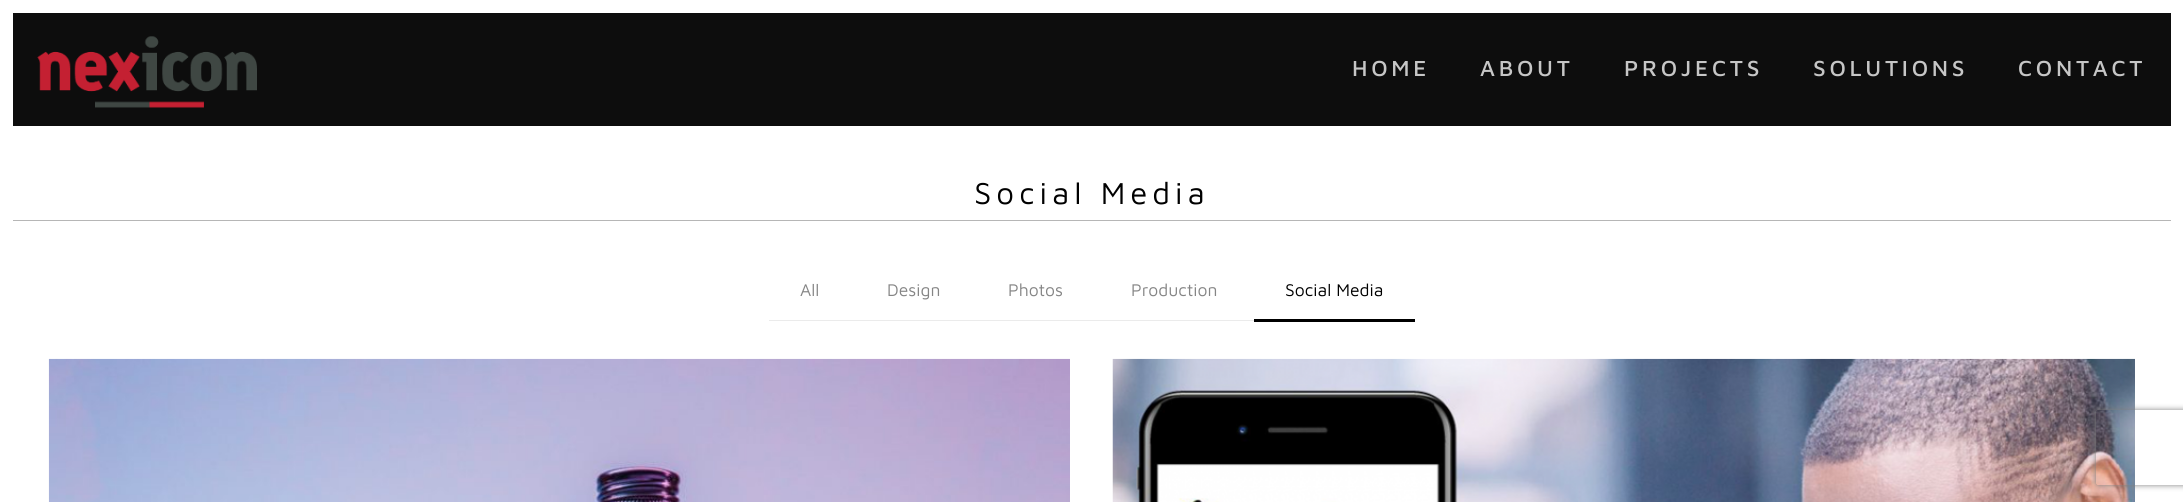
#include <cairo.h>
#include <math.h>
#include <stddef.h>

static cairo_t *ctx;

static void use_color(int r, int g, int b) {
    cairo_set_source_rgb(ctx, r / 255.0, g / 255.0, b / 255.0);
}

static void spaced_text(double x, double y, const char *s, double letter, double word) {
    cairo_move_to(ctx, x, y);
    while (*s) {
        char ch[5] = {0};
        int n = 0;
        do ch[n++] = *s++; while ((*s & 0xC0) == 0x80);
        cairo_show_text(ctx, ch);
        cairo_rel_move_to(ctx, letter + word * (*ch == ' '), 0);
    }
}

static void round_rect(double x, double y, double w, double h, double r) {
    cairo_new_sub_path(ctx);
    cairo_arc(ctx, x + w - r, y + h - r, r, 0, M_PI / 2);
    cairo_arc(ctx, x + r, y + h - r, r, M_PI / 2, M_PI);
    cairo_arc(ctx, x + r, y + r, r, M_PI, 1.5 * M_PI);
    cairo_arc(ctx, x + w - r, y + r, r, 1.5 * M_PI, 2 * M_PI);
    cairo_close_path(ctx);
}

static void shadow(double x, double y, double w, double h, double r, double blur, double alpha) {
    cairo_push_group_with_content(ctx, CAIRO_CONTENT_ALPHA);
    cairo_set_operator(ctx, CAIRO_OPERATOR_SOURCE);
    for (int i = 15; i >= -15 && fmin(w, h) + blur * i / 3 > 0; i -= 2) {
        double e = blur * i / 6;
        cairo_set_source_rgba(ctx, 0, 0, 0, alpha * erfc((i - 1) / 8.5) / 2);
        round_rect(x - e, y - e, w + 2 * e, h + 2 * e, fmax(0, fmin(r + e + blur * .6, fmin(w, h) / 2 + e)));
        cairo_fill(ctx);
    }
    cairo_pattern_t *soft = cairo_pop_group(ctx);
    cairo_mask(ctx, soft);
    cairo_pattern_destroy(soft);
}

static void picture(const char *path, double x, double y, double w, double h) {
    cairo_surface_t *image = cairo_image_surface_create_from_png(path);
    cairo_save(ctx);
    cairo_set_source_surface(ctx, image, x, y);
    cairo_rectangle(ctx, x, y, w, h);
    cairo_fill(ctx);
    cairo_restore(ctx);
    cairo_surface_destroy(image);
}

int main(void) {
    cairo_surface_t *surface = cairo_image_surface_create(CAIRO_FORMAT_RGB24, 2183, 502);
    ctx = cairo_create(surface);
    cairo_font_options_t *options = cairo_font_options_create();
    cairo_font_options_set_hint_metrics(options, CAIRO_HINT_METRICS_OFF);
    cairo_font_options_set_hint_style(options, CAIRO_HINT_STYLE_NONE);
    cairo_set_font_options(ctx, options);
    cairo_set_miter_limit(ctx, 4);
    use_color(255, 255, 255);
    cairo_paint(ctx);
    use_color(13, 13, 13);
    cairo_rectangle(ctx, 13, 13, 2158, 113);
    cairo_fill(ctx);
    picture("img1.png", 37, 36, 220, 72);
    cairo_select_font_face(ctx, "Maven Pro Medium", CAIRO_FONT_SLANT_NORMAL, CAIRO_FONT_WEIGHT_NORMAL);
    cairo_set_font_size(ctx, 22.5);
    use_color(198, 198, 198);
    spaced_text(1352, 76, "HOME", 3.75, 0);
    spaced_text(1480, 76, "ABOUT", 3.75, 0);
    spaced_text(1624, 76, "PROJECTS", 3.75, 0);
    spaced_text(1813, 76, "SOLUTIONS", 3.75, 0);
    spaced_text(2018, 76, "CONTACT", 3.75, 0);
    use_color(182, 182, 182);
    cairo_rectangle(ctx, 13, 220, 2158, 1);
    cairo_fill(ctx);
    cairo_select_font_face(ctx, "Maven Pro", CAIRO_FONT_SLANT_NORMAL, CAIRO_FONT_WEIGHT_NORMAL);
    cairo_set_font_size(ctx, 31.25);
    use_color(0, 0, 0);
    spaced_text(974, 204, "Social Media", 5, 0);
    use_color(235, 235, 235);
    cairo_rectangle(ctx, 769, 320, 485, 1);
    cairo_fill(ctx);
    cairo_set_font_size(ctx, 17.5);
    use_color(133, 133, 133);
    cairo_move_to(ctx, 800, 296);
    cairo_show_text(ctx, "All");
    cairo_move_to(ctx, 887, 296);
    cairo_show_text(ctx, "Design");
    cairo_move_to(ctx, 1008, 296);
    cairo_show_text(ctx, "Photos");
    cairo_move_to(ctx, 1131, 296);
    cairo_show_text(ctx, "Production");
    use_color(0, 0, 0);
    cairo_move_to(ctx, 1285, 296);
    cairo_show_text(ctx, "Social Media");
    cairo_rectangle(ctx, 1254, 319, 161, 3);
    cairo_fill(ctx);
    picture("img2.png", 48, 358, 1022, 144);
    picture("img3.png", 1112, 358, 1023, 144);
    cairo_save(ctx);
    cairo_set_fill_rule(ctx, CAIRO_FILL_RULE_EVEN_ODD);
    cairo_new_path(ctx);
    cairo_move_to(ctx, 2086, 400);
    cairo_line_to(ctx, 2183, 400);
    cairo_line_to(ctx, 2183, 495);
    cairo_line_to(ctx, 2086, 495);
    cairo_close_path(ctx);
    cairo_move_to(ctx, 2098.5, 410);
    cairo_line_to(ctx, 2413.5, 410);
    cairo_curve_to(ctx, 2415, 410, 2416, 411, 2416, 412.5);
    cairo_line_to(ctx, 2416, 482.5);
    cairo_curve_to(ctx, 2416, 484, 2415, 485, 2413.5, 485);
    cairo_line_to(ctx, 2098.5, 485);
    cairo_curve_to(ctx, 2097, 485, 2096, 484, 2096, 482.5);
    cairo_line_to(ctx, 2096, 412.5);
    cairo_curve_to(ctx, 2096, 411, 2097, 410, 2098.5, 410);
    cairo_close_path(ctx);
    cairo_clip(ctx);
    use_color(128, 128, 128);
    shadow(2096, 410, 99, 75, 2.5, 3, 1);
    cairo_restore(ctx);
    cairo_surface_write_to_png(surface, "result.png");
    cairo_font_options_destroy(options);
    cairo_destroy(ctx);
    cairo_surface_destroy(surface);
    return 0;
}
